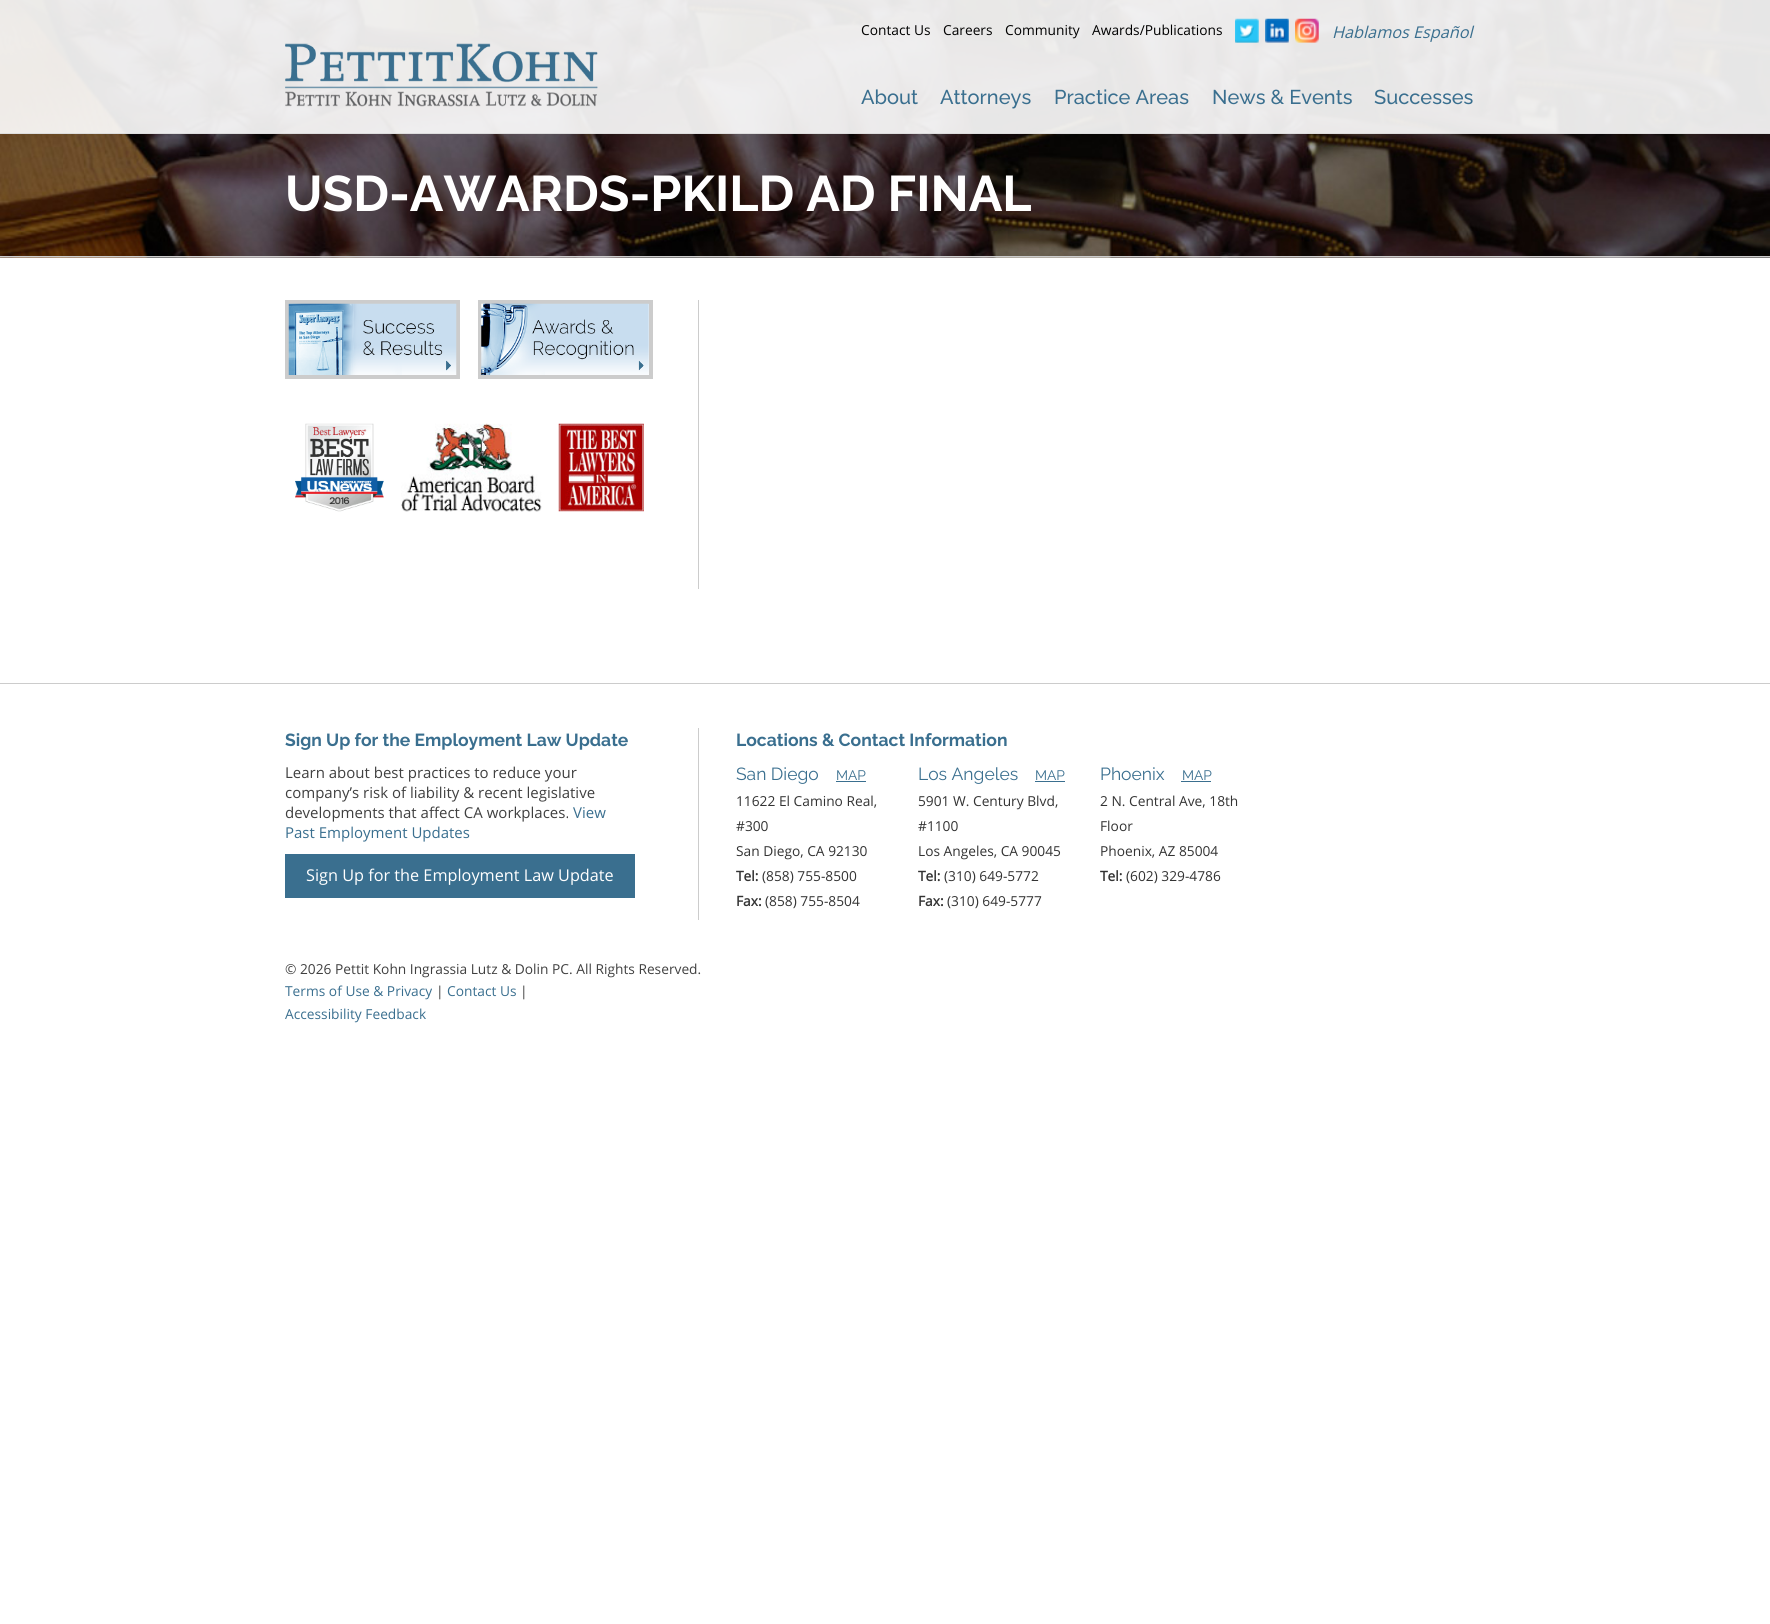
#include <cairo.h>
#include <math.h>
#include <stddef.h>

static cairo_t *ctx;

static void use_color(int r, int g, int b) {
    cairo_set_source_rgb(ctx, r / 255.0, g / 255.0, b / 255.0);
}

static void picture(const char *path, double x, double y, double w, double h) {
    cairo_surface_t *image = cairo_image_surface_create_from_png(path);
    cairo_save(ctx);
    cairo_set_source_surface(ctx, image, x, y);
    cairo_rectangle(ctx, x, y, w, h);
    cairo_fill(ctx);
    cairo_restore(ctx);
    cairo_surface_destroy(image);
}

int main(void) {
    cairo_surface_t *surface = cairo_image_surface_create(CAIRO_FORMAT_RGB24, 1770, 1624);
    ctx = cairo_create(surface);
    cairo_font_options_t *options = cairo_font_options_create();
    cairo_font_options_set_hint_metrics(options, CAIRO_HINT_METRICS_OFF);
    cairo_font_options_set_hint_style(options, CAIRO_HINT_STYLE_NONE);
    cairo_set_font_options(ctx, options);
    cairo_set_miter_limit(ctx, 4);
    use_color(255, 255, 255);
    cairo_paint(ctx);
    picture("img5.png", 0, 0, 1770, 258);
    cairo_set_source_rgba(ctx, 1, 1, 1, 0.9);
    cairo_rectangle(ctx, 0, 0, 1770, 133);
    cairo_fill(ctx);
    use_color(221, 221, 221);
    cairo_rectangle(ctx, 0, 133, 1770, 1);
    cairo_fill(ctx);
    picture("img1.png", 285, 43, 313, 64);
    cairo_select_font_face(ctx, "Open Sans", CAIRO_FONT_SLANT_NORMAL, CAIRO_FONT_WEIGHT_NORMAL);
    cairo_set_font_size(ctx, 13.75);
    use_color(0, 0, 0);
    cairo_move_to(ctx, 861, 35);
    cairo_show_text(ctx, "Contact Us");
    cairo_move_to(ctx, 943, 35);
    cairo_show_text(ctx, "Careers");
    cairo_move_to(ctx, 1005, 35);
    cairo_show_text(ctx, "Community");
    cairo_move_to(ctx, 1092, 35);
    cairo_show_text(ctx, "Awards/Publications");
    picture("img2.png", 1235, 18, 24, 25);
    picture("img3.png", 1265, 18, 24, 25);
    picture("img4.png", 1295, 18, 24, 25);
    cairo_select_font_face(ctx, "Open Sans", CAIRO_FONT_SLANT_ITALIC, CAIRO_FONT_WEIGHT_NORMAL);
    cairo_set_font_size(ctx, 16.25);
    use_color(58, 111, 143);
    cairo_move_to(ctx, 1332, 38);
    cairo_show_text(ctx, "Hablamos Español");
    cairo_select_font_face(ctx, "Raleway Medium", CAIRO_FONT_SLANT_NORMAL, CAIRO_FONT_WEIGHT_NORMAL);
    cairo_set_font_size(ctx, 20);
    cairo_move_to(ctx, 861, 104);
    cairo_show_text(ctx, "About");
    cairo_move_to(ctx, 940, 104);
    cairo_show_text(ctx, "Attorneys");
    cairo_move_to(ctx, 1054, 104);
    cairo_show_text(ctx, "Practice Areas");
    cairo_move_to(ctx, 1212, 104);
    cairo_show_text(ctx, "News & Events");
    cairo_move_to(ctx, 1374, 104);
    cairo_show_text(ctx, "Successes");
    use_color(204, 204, 204);
    cairo_rectangle(ctx, 0, 256, 1770, 1);
    cairo_fill(ctx);
    cairo_select_font_face(ctx, "Raleway", CAIRO_FONT_SLANT_NORMAL, CAIRO_FONT_WEIGHT_BOLD);
    cairo_set_font_size(ctx, 50);
    use_color(255, 255, 255);
    cairo_move_to(ctx, 285, 211);
    cairo_show_text(ctx, "USD-AWARDS-PKILD AD FINAL");
    cairo_rectangle(ctx, 287, 302, 171, 75);
    use_color(204, 204, 204);
    cairo_set_line_width(ctx, 4);
    cairo_stroke(ctx);
    picture("img6.png", 288, 303, 169, 72);
    cairo_rectangle(ctx, 480, 302, 171, 75);
    cairo_stroke(ctx);
    picture("img7.png", 481, 303, 168, 72);
    picture("img8.png", 295, 423, 89, 89);
    picture("img9.png", 401, 423, 141, 89);
    picture("img10.png", 558, 423, 86, 89);
    cairo_rectangle(ctx, 698, 300, 1, 289);
    cairo_fill(ctx);
    cairo_rectangle(ctx, 0, 683, 1770, 1);
    cairo_fill(ctx);
    cairo_set_font_size(ctx, 17.5);
    use_color(58, 111, 143);
    cairo_move_to(ctx, 285, 746);
    cairo_show_text(ctx, "Sign Up for the Employment Law Update");
    cairo_select_font_face(ctx, "Open Sans", CAIRO_FONT_SLANT_NORMAL, CAIRO_FONT_WEIGHT_NORMAL);
    cairo_set_font_size(ctx, 15);
    use_color(64, 64, 64);
    cairo_move_to(ctx, 285, 778);
    cairo_show_text(ctx, "Learn about best practices to reduce your");
    cairo_move_to(ctx, 285, 798);
    cairo_show_text(ctx, "company’s risk of liability & recent legislative");
    cairo_move_to(ctx, 285, 818);
    cairo_show_text(ctx, "developments that affect CA workplaces.");
    use_color(58, 111, 143);
    cairo_move_to(ctx, 573, 818);
    cairo_show_text(ctx, "View");
    cairo_move_to(ctx, 285, 838);
    cairo_show_text(ctx, "Past Employment Updates");
    cairo_rectangle(ctx, 285, 854, 350, 44);
    cairo_fill(ctx);
    cairo_set_font_size(ctx, 16.25);
    use_color(255, 255, 255);
    cairo_move_to(ctx, 306, 881);
    cairo_show_text(ctx, "Sign Up for the Employment Law Update");
    use_color(204, 204, 204);
    cairo_rectangle(ctx, 698, 728, 1, 192);
    cairo_fill(ctx);
    cairo_select_font_face(ctx, "Raleway", CAIRO_FONT_SLANT_NORMAL, CAIRO_FONT_WEIGHT_BOLD);
    cairo_set_font_size(ctx, 17.5);
    use_color(58, 111, 143);
    cairo_move_to(ctx, 736, 746);
    cairo_show_text(ctx, "Locations & Contact Information");
    cairo_select_font_face(ctx, "Raleway", CAIRO_FONT_SLANT_NORMAL, CAIRO_FONT_WEIGHT_NORMAL);
    cairo_move_to(ctx, 736, 780);
    cairo_show_text(ctx, "San Diego");
    cairo_set_font_size(ctx, 13.75);
    cairo_move_to(ctx, 836, 780);
    cairo_show_text(ctx, "MAP");
    cairo_rectangle(ctx, 836, 781, 30, 1);
    cairo_fill(ctx);
    cairo_select_font_face(ctx, "Open Sans", CAIRO_FONT_SLANT_NORMAL, CAIRO_FONT_WEIGHT_NORMAL);
    use_color(51, 51, 51);
    cairo_move_to(ctx, 736, 806);
    cairo_show_text(ctx, "11622 El Camino Real,");
    cairo_move_to(ctx, 736, 831);
    cairo_show_text(ctx, "#300");
    cairo_move_to(ctx, 736, 856);
    cairo_show_text(ctx, "San Diego, CA 92130");
    cairo_select_font_face(ctx, "Open Sans", CAIRO_FONT_SLANT_NORMAL, CAIRO_FONT_WEIGHT_BOLD);
    cairo_move_to(ctx, 736, 881);
    cairo_show_text(ctx, "Tel:");
    cairo_select_font_face(ctx, "Open Sans", CAIRO_FONT_SLANT_NORMAL, CAIRO_FONT_WEIGHT_NORMAL);
    cairo_move_to(ctx, 762, 881);
    cairo_show_text(ctx, "(858) 755-8500");
    cairo_select_font_face(ctx, "Open Sans", CAIRO_FONT_SLANT_NORMAL, CAIRO_FONT_WEIGHT_BOLD);
    cairo_move_to(ctx, 736, 906);
    cairo_show_text(ctx, "Fax:");
    cairo_select_font_face(ctx, "Open Sans", CAIRO_FONT_SLANT_NORMAL, CAIRO_FONT_WEIGHT_NORMAL);
    cairo_move_to(ctx, 765, 906);
    cairo_show_text(ctx, "(858) 755-8504");
    cairo_select_font_face(ctx, "Raleway", CAIRO_FONT_SLANT_NORMAL, CAIRO_FONT_WEIGHT_NORMAL);
    cairo_set_font_size(ctx, 17.5);
    use_color(58, 111, 143);
    cairo_move_to(ctx, 918, 780);
    cairo_show_text(ctx, "Los Angeles");
    cairo_set_font_size(ctx, 13.75);
    cairo_move_to(ctx, 1035, 780);
    cairo_show_text(ctx, "MAP");
    cairo_rectangle(ctx, 1035, 781, 30, 1);
    cairo_fill(ctx);
    cairo_select_font_face(ctx, "Open Sans", CAIRO_FONT_SLANT_NORMAL, CAIRO_FONT_WEIGHT_NORMAL);
    use_color(51, 51, 51);
    cairo_move_to(ctx, 918, 806);
    cairo_show_text(ctx, "5901 W. Century Blvd,");
    cairo_move_to(ctx, 918, 831);
    cairo_show_text(ctx, "#1100");
    cairo_move_to(ctx, 918, 856);
    cairo_show_text(ctx, "Los Angeles, CA 90045");
    cairo_select_font_face(ctx, "Open Sans", CAIRO_FONT_SLANT_NORMAL, CAIRO_FONT_WEIGHT_BOLD);
    cairo_move_to(ctx, 918, 881);
    cairo_show_text(ctx, "Tel:");
    cairo_select_font_face(ctx, "Open Sans", CAIRO_FONT_SLANT_NORMAL, CAIRO_FONT_WEIGHT_NORMAL);
    cairo_move_to(ctx, 944, 881);
    cairo_show_text(ctx, "(310) 649-5772");
    cairo_select_font_face(ctx, "Open Sans", CAIRO_FONT_SLANT_NORMAL, CAIRO_FONT_WEIGHT_BOLD);
    cairo_move_to(ctx, 918, 906);
    cairo_show_text(ctx, "Fax:");
    cairo_select_font_face(ctx, "Open Sans", CAIRO_FONT_SLANT_NORMAL, CAIRO_FONT_WEIGHT_NORMAL);
    cairo_move_to(ctx, 947, 906);
    cairo_show_text(ctx, "(310) 649-5777");
    cairo_select_font_face(ctx, "Raleway", CAIRO_FONT_SLANT_NORMAL, CAIRO_FONT_WEIGHT_NORMAL);
    cairo_set_font_size(ctx, 17.5);
    use_color(58, 111, 143);
    cairo_move_to(ctx, 1100, 780);
    cairo_show_text(ctx, "Phoenix");
    cairo_set_font_size(ctx, 13.75);
    cairo_move_to(ctx, 1182, 780);
    cairo_show_text(ctx, "MAP");
    cairo_rectangle(ctx, 1181, 781, 30, 1);
    cairo_fill(ctx);
    cairo_select_font_face(ctx, "Open Sans", CAIRO_FONT_SLANT_NORMAL, CAIRO_FONT_WEIGHT_NORMAL);
    use_color(51, 51, 51);
    cairo_move_to(ctx, 1100, 806);
    cairo_show_text(ctx, "2 N. Central Ave, 18th");
    cairo_move_to(ctx, 1100, 831);
    cairo_show_text(ctx, "Floor");
    cairo_move_to(ctx, 1100, 856);
    cairo_show_text(ctx, "Phoenix, AZ 85004");
    cairo_select_font_face(ctx, "Open Sans", CAIRO_FONT_SLANT_NORMAL, CAIRO_FONT_WEIGHT_BOLD);
    cairo_move_to(ctx, 1100, 881);
    cairo_show_text(ctx, "Tel:");
    cairo_select_font_face(ctx, "Open Sans", CAIRO_FONT_SLANT_NORMAL, CAIRO_FONT_WEIGHT_NORMAL);
    cairo_move_to(ctx, 1126, 881);
    cairo_show_text(ctx, "(602) 329-4786");
    use_color(64, 64, 64);
    cairo_move_to(ctx, 285, 974);
    cairo_show_text(ctx, "© 2026 Pettit Kohn Ingrassia Lutz & Dolin PC. All Rights Reserved.");
    use_color(58, 111, 143);
    cairo_move_to(ctx, 285, 996);
    cairo_show_text(ctx, "Terms of Use & Privacy");
    use_color(64, 64, 64);
    cairo_move_to(ctx, 436, 996);
    cairo_show_text(ctx, "|");
    use_color(58, 111, 143);
    cairo_move_to(ctx, 447, 996);
    cairo_show_text(ctx, "Contact Us");
    use_color(64, 64, 64);
    cairo_move_to(ctx, 520, 996);
    cairo_show_text(ctx, "|");
    use_color(58, 111, 143);
    cairo_move_to(ctx, 285, 1019);
    cairo_show_text(ctx, "Accessibility Feedback");
    cairo_surface_write_to_png(surface, "result.png");
    cairo_font_options_destroy(options);
    cairo_destroy(ctx);
    cairo_surface_destroy(surface);
    return 0;
}
